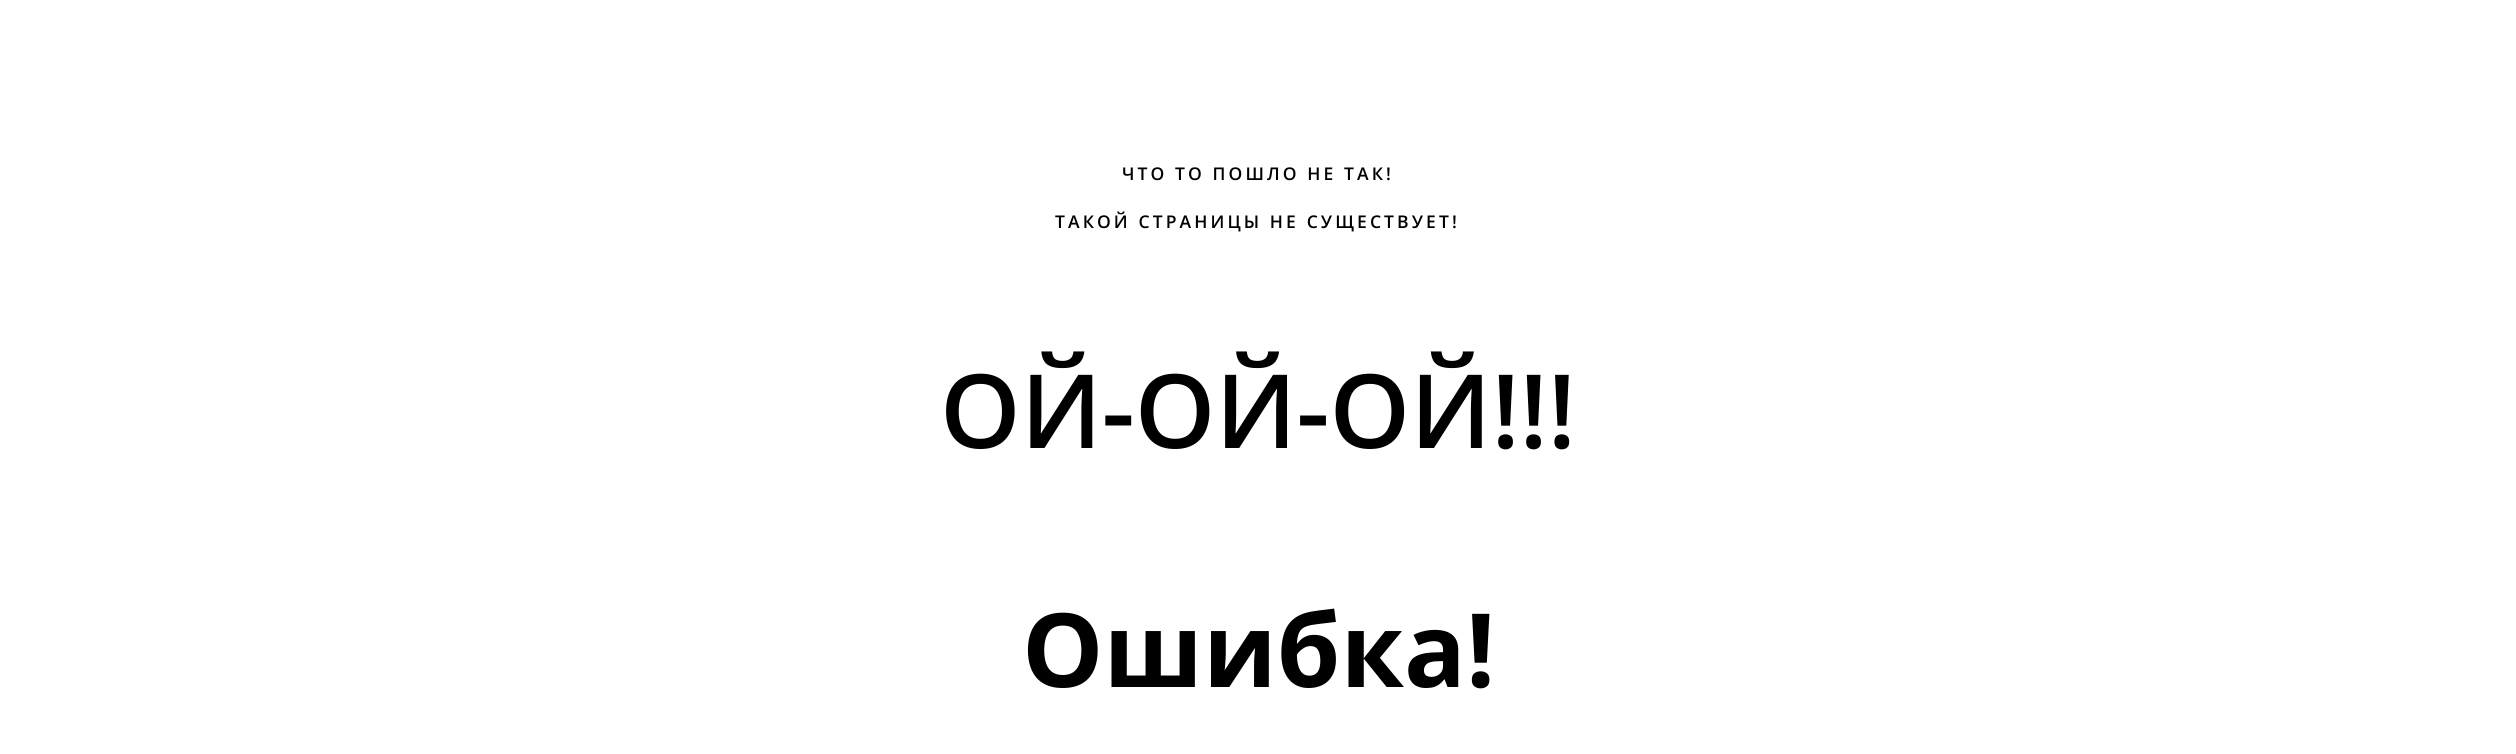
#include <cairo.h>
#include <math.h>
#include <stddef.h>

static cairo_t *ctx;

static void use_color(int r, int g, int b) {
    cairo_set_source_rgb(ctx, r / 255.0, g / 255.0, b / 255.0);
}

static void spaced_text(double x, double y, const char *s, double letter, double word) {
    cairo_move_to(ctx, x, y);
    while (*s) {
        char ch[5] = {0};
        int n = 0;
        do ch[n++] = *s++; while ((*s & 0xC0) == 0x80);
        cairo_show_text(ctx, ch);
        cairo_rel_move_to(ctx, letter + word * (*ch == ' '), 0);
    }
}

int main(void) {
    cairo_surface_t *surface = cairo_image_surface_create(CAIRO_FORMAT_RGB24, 2516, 754);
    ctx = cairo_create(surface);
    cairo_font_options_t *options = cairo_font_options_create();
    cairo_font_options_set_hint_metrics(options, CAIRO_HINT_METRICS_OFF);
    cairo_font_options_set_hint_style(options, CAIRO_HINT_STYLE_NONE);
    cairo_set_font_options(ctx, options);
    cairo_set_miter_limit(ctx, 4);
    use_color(255, 255, 255);
    cairo_paint(ctx);
    cairo_select_font_face(ctx, "Open Sans SemiBold", CAIRO_FONT_SLANT_NORMAL, CAIRO_FONT_WEIGHT_NORMAL);
    cairo_set_font_size(ctx, 17.5);
    use_color(0, 0, 0);
    spaced_text(1122, 180, "ЧТО ТО ПОШЛО НЕ ТАК!", 3.1, 0);
    spaced_text(1055, 228, "ТАКОЙ СТРАНИЦЫ НЕ СУЩЕСТВУЕТ!", 3.1, 0);
    cairo_set_font_size(ctx, 102.5);
    cairo_move_to(ctx, 940, 448);
    cairo_show_text(ctx, "ОЙ-ОЙ-ОЙ!!!");
    cairo_select_font_face(ctx, "Open Sans", CAIRO_FONT_SLANT_NORMAL, CAIRO_FONT_WEIGHT_BOLD);
    cairo_move_to(ctx, 1022, 687);
    cairo_show_text(ctx, "Ошибка!");
    cairo_surface_write_to_png(surface, "result.png");
    cairo_font_options_destroy(options);
    cairo_destroy(ctx);
    cairo_surface_destroy(surface);
    return 0;
}
